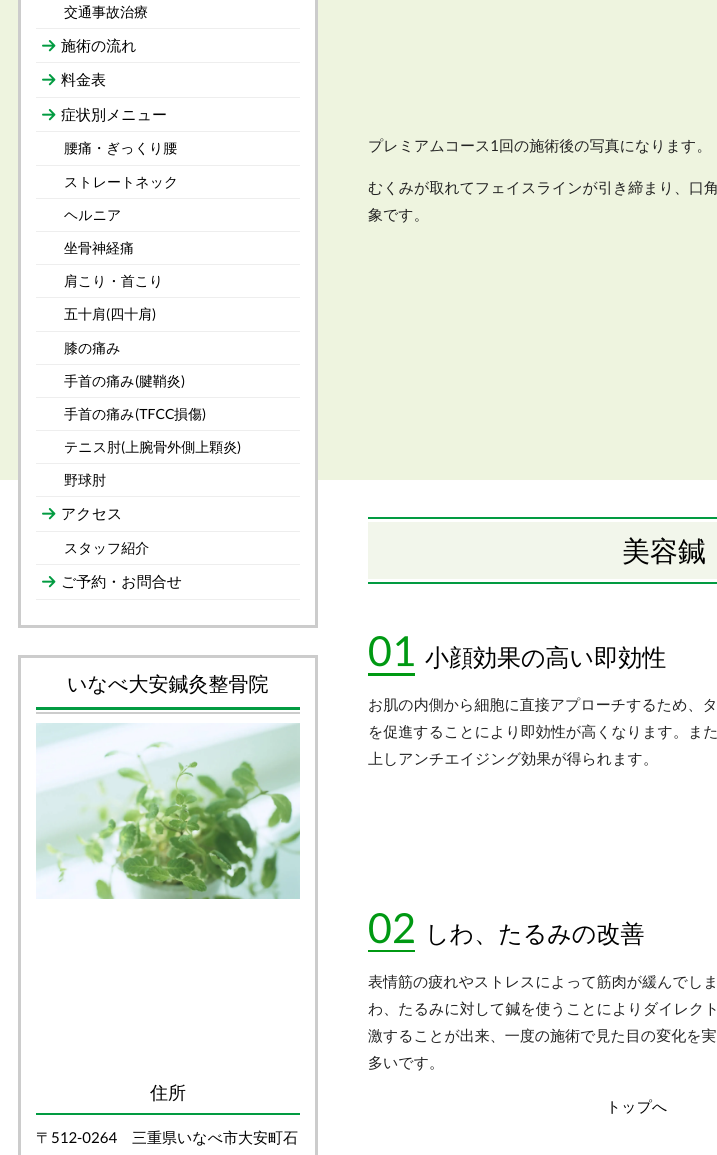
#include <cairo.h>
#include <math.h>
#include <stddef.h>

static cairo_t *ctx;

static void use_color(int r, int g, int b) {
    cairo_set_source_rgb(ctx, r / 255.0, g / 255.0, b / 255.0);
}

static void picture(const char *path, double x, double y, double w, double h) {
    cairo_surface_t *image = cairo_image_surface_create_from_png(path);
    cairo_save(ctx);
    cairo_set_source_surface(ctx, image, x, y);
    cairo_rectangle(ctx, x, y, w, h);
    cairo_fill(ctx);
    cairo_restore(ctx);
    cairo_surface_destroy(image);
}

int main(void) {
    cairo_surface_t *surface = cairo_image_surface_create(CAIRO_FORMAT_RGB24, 717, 1155);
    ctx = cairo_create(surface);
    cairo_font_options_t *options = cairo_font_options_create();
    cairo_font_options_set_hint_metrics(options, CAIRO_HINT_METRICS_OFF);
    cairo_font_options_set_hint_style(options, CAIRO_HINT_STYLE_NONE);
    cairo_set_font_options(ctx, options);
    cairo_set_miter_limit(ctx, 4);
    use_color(255, 255, 255);
    cairo_paint(ctx);
    use_color(238, 244, 223);
    cairo_rectangle(ctx, 0, 0, 717, 480);
    cairo_fill(ctx);
    use_color(255, 255, 255);
    cairo_rectangle(ctx, 21, 0, 294, 480);
    cairo_fill(ctx);
    cairo_rectangle(ctx, 19.5, -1.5, 297, 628);
    use_color(204, 204, 204);
    cairo_set_line_width(ctx, 3);
    cairo_stroke(ctx);
    use_color(238, 238, 238);
    cairo_rectangle(ctx, 36, 599, 264, 1);
    cairo_fill(ctx);
    cairo_select_font_face(ctx, "WenQuanYi Zen Hei Medium", CAIRO_FONT_SLANT_NORMAL, CAIRO_FONT_WEIGHT_NORMAL);
    cairo_set_font_size(ctx, 14);
    use_color(0, 0, 0);
    cairo_move_to(ctx, 64, 17);
    cairo_show_text(ctx, "交通事故治療");
    use_color(238, 238, 238);
    cairo_rectangle(ctx, 36, 28, 264, 1);
    cairo_fill(ctx);
    picture("img1.png", 42, 40, 14, 12);
    cairo_set_font_size(ctx, 15);
    use_color(0, 0, 0);
    cairo_move_to(ctx, 61, 51);
    cairo_show_text(ctx, "施術の流れ");
    use_color(238, 238, 238);
    cairo_rectangle(ctx, 36, 62, 264, 1);
    cairo_fill(ctx);
    picture("img1.png", 42, 74, 14, 12);
    use_color(0, 0, 0);
    cairo_move_to(ctx, 61, 85);
    cairo_show_text(ctx, "料金表");
    use_color(238, 238, 238);
    cairo_rectangle(ctx, 36, 97, 264, 1);
    cairo_fill(ctx);
    picture("img1.png", 42, 109, 14, 12);
    use_color(0, 0, 0);
    cairo_move_to(ctx, 61, 120);
    cairo_show_text(ctx, "症状別メニュー");
    use_color(238, 238, 238);
    cairo_rectangle(ctx, 36, 131, 264, 1);
    cairo_fill(ctx);
    cairo_set_font_size(ctx, 14);
    use_color(0, 0, 0);
    cairo_move_to(ctx, 64, 153);
    cairo_show_text(ctx, "腰痛・ぎっくり腰");
    use_color(238, 238, 238);
    cairo_rectangle(ctx, 36, 165, 264, 1);
    cairo_fill(ctx);
    use_color(0, 0, 0);
    cairo_move_to(ctx, 64, 187);
    cairo_show_text(ctx, "ストレートネック");
    use_color(238, 238, 238);
    cairo_rectangle(ctx, 36, 198, 264, 1);
    cairo_fill(ctx);
    use_color(0, 0, 0);
    cairo_move_to(ctx, 64, 220);
    cairo_show_text(ctx, "ヘルニア");
    use_color(238, 238, 238);
    cairo_rectangle(ctx, 36, 231, 264, 1);
    cairo_fill(ctx);
    use_color(0, 0, 0);
    cairo_move_to(ctx, 64, 253);
    cairo_show_text(ctx, "坐骨神経痛");
    use_color(238, 238, 238);
    cairo_rectangle(ctx, 36, 264, 264, 1);
    cairo_fill(ctx);
    use_color(0, 0, 0);
    cairo_move_to(ctx, 64, 286);
    cairo_show_text(ctx, "肩こり・首こり");
    use_color(238, 238, 238);
    cairo_rectangle(ctx, 36, 297, 264, 1);
    cairo_fill(ctx);
    use_color(0, 0, 0);
    cairo_move_to(ctx, 64, 319);
    cairo_show_text(ctx, "五十肩 四十肩");
    cairo_select_font_face(ctx, "Lato", CAIRO_FONT_SLANT_NORMAL, CAIRO_FONT_WEIGHT_NORMAL);
    cairo_move_to(ctx, 106, 319);
    cairo_show_text(ctx, "(");
    cairo_move_to(ctx, 152, 319);
    cairo_show_text(ctx, ")");
    use_color(238, 238, 238);
    cairo_rectangle(ctx, 36, 331, 264, 1);
    cairo_fill(ctx);
    cairo_select_font_face(ctx, "WenQuanYi Zen Hei Medium", CAIRO_FONT_SLANT_NORMAL, CAIRO_FONT_WEIGHT_NORMAL);
    use_color(0, 0, 0);
    cairo_move_to(ctx, 64, 353);
    cairo_show_text(ctx, "膝の痛み");
    use_color(238, 238, 238);
    cairo_rectangle(ctx, 36, 364, 264, 1);
    cairo_fill(ctx);
    use_color(0, 0, 0);
    cairo_move_to(ctx, 64, 386);
    cairo_show_text(ctx, "手首の痛み 腱鞘炎");
    cairo_select_font_face(ctx, "Lato", CAIRO_FONT_SLANT_NORMAL, CAIRO_FONT_WEIGHT_NORMAL);
    cairo_move_to(ctx, 135, 386);
    cairo_show_text(ctx, "(");
    cairo_move_to(ctx, 181, 386);
    cairo_show_text(ctx, ")");
    use_color(238, 238, 238);
    cairo_rectangle(ctx, 36, 397, 264, 1);
    cairo_fill(ctx);
    cairo_select_font_face(ctx, "WenQuanYi Zen Hei Medium", CAIRO_FONT_SLANT_NORMAL, CAIRO_FONT_WEIGHT_NORMAL);
    use_color(0, 0, 0);
    cairo_move_to(ctx, 64, 419);
    cairo_show_text(ctx, "手首の痛み");
    cairo_select_font_face(ctx, "Lato", CAIRO_FONT_SLANT_NORMAL, CAIRO_FONT_WEIGHT_NORMAL);
    cairo_move_to(ctx, 135, 419);
    cairo_show_text(ctx, "(TFCC");
    cairo_select_font_face(ctx, "WenQuanYi Zen Hei Medium", CAIRO_FONT_SLANT_NORMAL, CAIRO_FONT_WEIGHT_NORMAL);
    cairo_move_to(ctx, 174, 419);
    cairo_show_text(ctx, "損傷");
    cairo_select_font_face(ctx, "Lato", CAIRO_FONT_SLANT_NORMAL, CAIRO_FONT_WEIGHT_NORMAL);
    cairo_move_to(ctx, 202, 419);
    cairo_show_text(ctx, ")");
    use_color(238, 238, 238);
    cairo_rectangle(ctx, 36, 430, 264, 1);
    cairo_fill(ctx);
    cairo_select_font_face(ctx, "WenQuanYi Zen Hei Medium", CAIRO_FONT_SLANT_NORMAL, CAIRO_FONT_WEIGHT_NORMAL);
    use_color(0, 0, 0);
    cairo_move_to(ctx, 64, 452);
    cairo_show_text(ctx, "テニス肘 上腕骨外側上顆炎");
    cairo_select_font_face(ctx, "Lato", CAIRO_FONT_SLANT_NORMAL, CAIRO_FONT_WEIGHT_NORMAL);
    cairo_move_to(ctx, 121, 452);
    cairo_show_text(ctx, "(");
    cairo_move_to(ctx, 237, 452);
    cairo_show_text(ctx, ")");
    use_color(238, 238, 238);
    cairo_rectangle(ctx, 36, 463, 264, 1);
    cairo_fill(ctx);
    cairo_select_font_face(ctx, "WenQuanYi Zen Hei Medium", CAIRO_FONT_SLANT_NORMAL, CAIRO_FONT_WEIGHT_NORMAL);
    use_color(0, 0, 0);
    cairo_move_to(ctx, 64, 485);
    cairo_show_text(ctx, "野球肘");
    use_color(238, 238, 238);
    cairo_rectangle(ctx, 36, 496, 264, 1);
    cairo_fill(ctx);
    picture("img1.png", 42, 508, 14, 12);
    cairo_set_font_size(ctx, 15);
    use_color(0, 0, 0);
    cairo_move_to(ctx, 61, 519);
    cairo_show_text(ctx, "アクセス");
    use_color(238, 238, 238);
    cairo_rectangle(ctx, 36, 531, 264, 1);
    cairo_fill(ctx);
    cairo_set_font_size(ctx, 14);
    use_color(0, 0, 0);
    cairo_move_to(ctx, 64, 553);
    cairo_show_text(ctx, "スタッフ紹介");
    use_color(238, 238, 238);
    cairo_rectangle(ctx, 36, 564, 264, 1);
    cairo_fill(ctx);
    picture("img1.png", 42, 576, 14, 12);
    cairo_set_font_size(ctx, 15);
    use_color(0, 0, 0);
    cairo_move_to(ctx, 61, 587);
    cairo_show_text(ctx, "ご予約・お問合せ");
    cairo_rectangle(ctx, 19.5, 656.5, 297, 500);
    use_color(204, 204, 204);
    cairo_stroke(ctx);
    cairo_rectangle(ctx, 36, 712, 264, 2);
    cairo_fill(ctx);
    cairo_set_font_size(ctx, 20);
    use_color(0, 0, 0);
    cairo_move_to(ctx, 67, 691);
    cairo_show_text(ctx, "いなべ大安鍼灸整骨院");
    use_color(2, 155, 65);
    cairo_rectangle(ctx, 36, 707, 264, 3);
    cairo_fill(ctx);
    picture("img2.png", 36, 723, 264, 176);
    cairo_rectangle(ctx, 36, 1113, 264, 2);
    cairo_fill(ctx);
    cairo_set_font_size(ctx, 18);
    use_color(0, 0, 0);
    cairo_move_to(ctx, 150, 1099);
    cairo_show_text(ctx, "住所");
    cairo_set_font_size(ctx, 15);
    cairo_move_to(ctx, 36, 1143);
    cairo_show_text(ctx, "〒");
    cairo_select_font_face(ctx, "Lato", CAIRO_FONT_SLANT_NORMAL, CAIRO_FONT_WEIGHT_NORMAL);
    cairo_move_to(ctx, 51, 1143);
    cairo_show_text(ctx, "512-0264");
    cairo_select_font_face(ctx, "WenQuanYi Zen Hei Medium", CAIRO_FONT_SLANT_NORMAL, CAIRO_FONT_WEIGHT_NORMAL);
    cairo_move_to(ctx, 132, 1143);
    cairo_show_text(ctx, "三重県いなべ市大安町石");
    use_color(34, 34, 34);
    cairo_move_to(ctx, 368, 151);
    cairo_show_text(ctx, "プレミアムコース");
    cairo_select_font_face(ctx, "Lato", CAIRO_FONT_SLANT_NORMAL, CAIRO_FONT_WEIGHT_NORMAL);
    cairo_move_to(ctx, 490, 151);
    cairo_show_text(ctx, "1");
    cairo_select_font_face(ctx, "WenQuanYi Zen Hei Medium", CAIRO_FONT_SLANT_NORMAL, CAIRO_FONT_WEIGHT_NORMAL);
    cairo_move_to(ctx, 499, 151);
    cairo_show_text(ctx, "回の施術後の写真になります。");
    cairo_move_to(ctx, 368, 193);
    cairo_show_text(ctx, "むくみが取れてフェイスラインが引き締まり、口角");
    cairo_move_to(ctx, 368, 220);
    cairo_show_text(ctx, "象です。");
    use_color(242, 246, 235);
    cairo_rectangle(ctx, 368, 522, 349, 57);
    cairo_fill(ctx);
    use_color(2, 155, 65);
    cairo_rectangle(ctx, 368, 517, 349, 2);
    cairo_fill(ctx);
    cairo_set_font_size(ctx, 28);
    use_color(0, 0, 0);
    cairo_move_to(ctx, 622, 561);
    cairo_show_text(ctx, "美容鍼");
    use_color(2, 155, 65);
    cairo_rectangle(ctx, 368, 582, 349, 2);
    cairo_fill(ctx);
    picture("img3.png", 368, 636, 47, 40);
    cairo_set_font_size(ctx, 24);
    use_color(0, 0, 0);
    cairo_move_to(ctx, 425, 666);
    cairo_show_text(ctx, "小顔効果の高い即効性");
    cairo_set_font_size(ctx, 15);
    use_color(34, 34, 34);
    cairo_move_to(ctx, 368, 710);
    cairo_show_text(ctx, "お肌の内側から細胞に直接アプローチするため、タ");
    cairo_move_to(ctx, 368, 737);
    cairo_show_text(ctx, "を促進することにより即効性が高くなります。また");
    cairo_move_to(ctx, 368, 764);
    cairo_show_text(ctx, "上しアンチエイジング効果が得られます。");
    picture("img4.png", 368, 913, 47, 39);
    cairo_set_font_size(ctx, 24);
    use_color(0, 0, 0);
    cairo_move_to(ctx, 425, 942);
    cairo_show_text(ctx, "しわ、たるみの改善");
    cairo_set_font_size(ctx, 15);
    use_color(34, 34, 34);
    cairo_move_to(ctx, 368, 987);
    cairo_show_text(ctx, "表情筋の疲れやストレスによって筋肉が緩んでしま");
    cairo_move_to(ctx, 368, 1014);
    cairo_show_text(ctx, "わ、たるみに対して鍼を使うことによりダイレクト");
    cairo_move_to(ctx, 368, 1041);
    cairo_show_text(ctx, "激することが出来、一度の施術で見た目の変化を実");
    cairo_move_to(ctx, 368, 1068);
    cairo_show_text(ctx, "多いです。");
    use_color(0, 0, 0);
    cairo_move_to(ctx, 606, 1112);
    cairo_show_text(ctx, "トップへ");
    cairo_surface_write_to_png(surface, "result.png");
    cairo_font_options_destroy(options);
    cairo_destroy(ctx);
    cairo_surface_destroy(surface);
    return 0;
}
